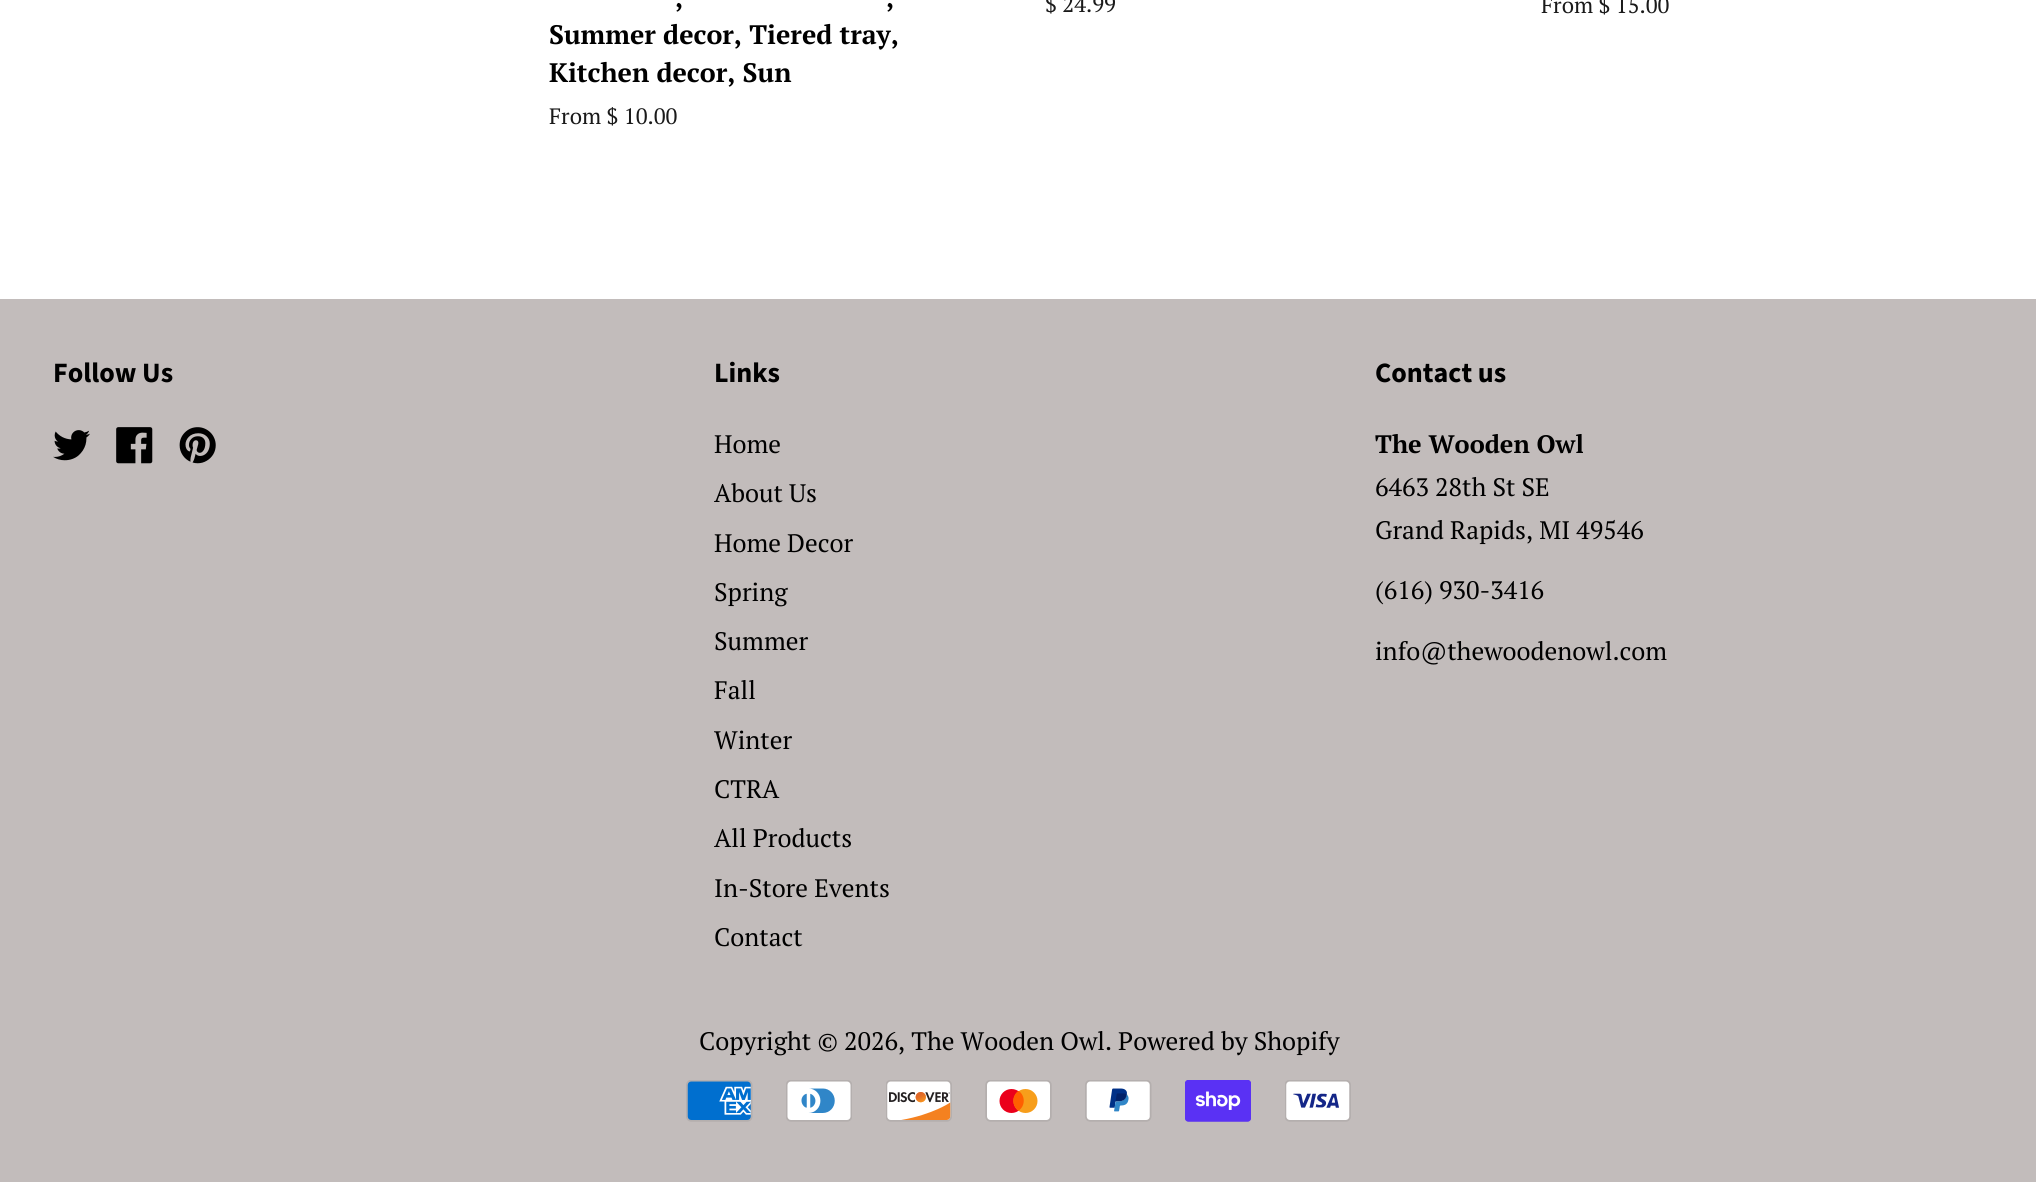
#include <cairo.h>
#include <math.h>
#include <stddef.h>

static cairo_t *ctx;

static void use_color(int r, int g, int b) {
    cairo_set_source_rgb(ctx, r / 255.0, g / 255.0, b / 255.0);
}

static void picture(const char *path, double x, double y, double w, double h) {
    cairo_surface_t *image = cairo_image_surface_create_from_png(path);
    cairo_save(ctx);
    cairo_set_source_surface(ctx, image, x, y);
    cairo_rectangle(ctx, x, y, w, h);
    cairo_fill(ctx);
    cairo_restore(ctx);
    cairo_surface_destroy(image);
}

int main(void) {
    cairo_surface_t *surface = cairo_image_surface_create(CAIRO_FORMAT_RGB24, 2036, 1182);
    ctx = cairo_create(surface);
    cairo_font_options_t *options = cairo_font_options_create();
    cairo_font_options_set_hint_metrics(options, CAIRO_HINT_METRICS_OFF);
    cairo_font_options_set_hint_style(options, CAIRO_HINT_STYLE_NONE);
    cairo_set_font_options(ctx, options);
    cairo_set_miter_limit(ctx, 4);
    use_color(255, 255, 255);
    cairo_paint(ctx);
    cairo_select_font_face(ctx, "PT Serif", CAIRO_FONT_SLANT_NORMAL, CAIRO_FONT_WEIGHT_BOLD);
    cairo_set_font_size(ctx, 26.75);
    use_color(0, 0, 0);
    cairo_move_to(ctx, 675, 7);
    cairo_show_text(ctx, ",");
    cairo_move_to(ctx, 886, 7);
    cairo_show_text(ctx, ",");
    cairo_move_to(ctx, 549, 44);
    cairo_show_text(ctx, "Summer decor, Tiered tray,");
    cairo_move_to(ctx, 549, 82);
    cairo_show_text(ctx, "Kitchen decor, Sun");
    cairo_select_font_face(ctx, "PT Serif", CAIRO_FONT_SLANT_NORMAL, CAIRO_FONT_WEIGHT_NORMAL);
    cairo_set_font_size(ctx, 22.25);
    use_color(26, 26, 26);
    cairo_move_to(ctx, 549, 124);
    cairo_show_text(ctx, "From $ 10.00");
    cairo_move_to(ctx, 1045, 12);
    cairo_show_text(ctx, "$ 24.99");
    cairo_move_to(ctx, 1541, 13);
    cairo_show_text(ctx, "From $ 15.00");
    use_color(194, 188, 187);
    cairo_rectangle(ctx, 0, 299, 2036, 883);
    cairo_fill(ctx);
    cairo_select_font_face(ctx, "Source Sans Pro", CAIRO_FONT_SLANT_NORMAL, CAIRO_FONT_WEIGHT_BOLD);
    cairo_set_font_size(ctx, 28);
    use_color(0, 0, 0);
    cairo_move_to(ctx, 53, 382);
    cairo_show_text(ctx, "Follow Us");
    picture("img1.png", 53, 430, 37, 31);
    picture("img2.png", 116, 427, 37, 37);
    picture("img3.png", 179, 427, 37, 37);
    cairo_move_to(ctx, 714, 382);
    cairo_show_text(ctx, "Links");
    cairo_select_font_face(ctx, "PT Serif", CAIRO_FONT_SLANT_NORMAL, CAIRO_FONT_WEIGHT_NORMAL);
    cairo_set_font_size(ctx, 25.3);
    cairo_move_to(ctx, 714, 453);
    cairo_show_text(ctx, "Home");
    cairo_move_to(ctx, 714, 502);
    cairo_show_text(ctx, "About Us");
    cairo_move_to(ctx, 714, 552);
    cairo_show_text(ctx, "Home Decor");
    cairo_move_to(ctx, 714, 601);
    cairo_show_text(ctx, "Spring");
    cairo_move_to(ctx, 714, 650);
    cairo_show_text(ctx, "Summer");
    cairo_move_to(ctx, 714, 699);
    cairo_show_text(ctx, "Fall");
    cairo_move_to(ctx, 714, 749);
    cairo_show_text(ctx, "Winter");
    cairo_move_to(ctx, 714, 798);
    cairo_show_text(ctx, "CTRA");
    cairo_move_to(ctx, 714, 847);
    cairo_show_text(ctx, "All Products");
    cairo_move_to(ctx, 714, 897);
    cairo_show_text(ctx, "In-Store Events");
    cairo_move_to(ctx, 714, 946);
    cairo_show_text(ctx, "Contact");
    cairo_select_font_face(ctx, "Source Sans Pro", CAIRO_FONT_SLANT_NORMAL, CAIRO_FONT_WEIGHT_BOLD);
    cairo_set_font_size(ctx, 28);
    cairo_move_to(ctx, 1375, 382);
    cairo_show_text(ctx, "Contact us");
    cairo_select_font_face(ctx, "PT Serif", CAIRO_FONT_SLANT_NORMAL, CAIRO_FONT_WEIGHT_BOLD);
    cairo_set_font_size(ctx, 25.3);
    cairo_move_to(ctx, 1375, 453);
    cairo_show_text(ctx, "The Wooden Owl");
    cairo_select_font_face(ctx, "PT Serif", CAIRO_FONT_SLANT_NORMAL, CAIRO_FONT_WEIGHT_NORMAL);
    cairo_move_to(ctx, 1375, 496);
    cairo_show_text(ctx, "6463 28th St SE");
    cairo_move_to(ctx, 1375, 539);
    cairo_show_text(ctx, "Grand Rapids, MI 49546");
    cairo_move_to(ctx, 1375, 599);
    cairo_show_text(ctx, "(616) 930-3416");
    cairo_move_to(ctx, 1375, 660);
    cairo_show_text(ctx, "info@thewoodenowl.com");
    cairo_move_to(ctx, 699, 1050);
    cairo_show_text(ctx, "Copyright © 2026, The Wooden Owl. Powered by Shopify");
    picture("img4.png", 686, 1080, 67, 42);
    picture("img5.png", 786, 1080, 66, 42);
    picture("img6.png", 886, 1080, 66, 42);
    picture("img7.png", 985, 1080, 67, 42);
    picture("img8.png", 1085, 1080, 67, 42);
    picture("img9.png", 1185, 1080, 66, 42);
    picture("img10.png", 1285, 1080, 66, 42);
    cairo_surface_write_to_png(surface, "result.png");
    cairo_font_options_destroy(options);
    cairo_destroy(ctx);
    cairo_surface_destroy(surface);
    return 0;
}
